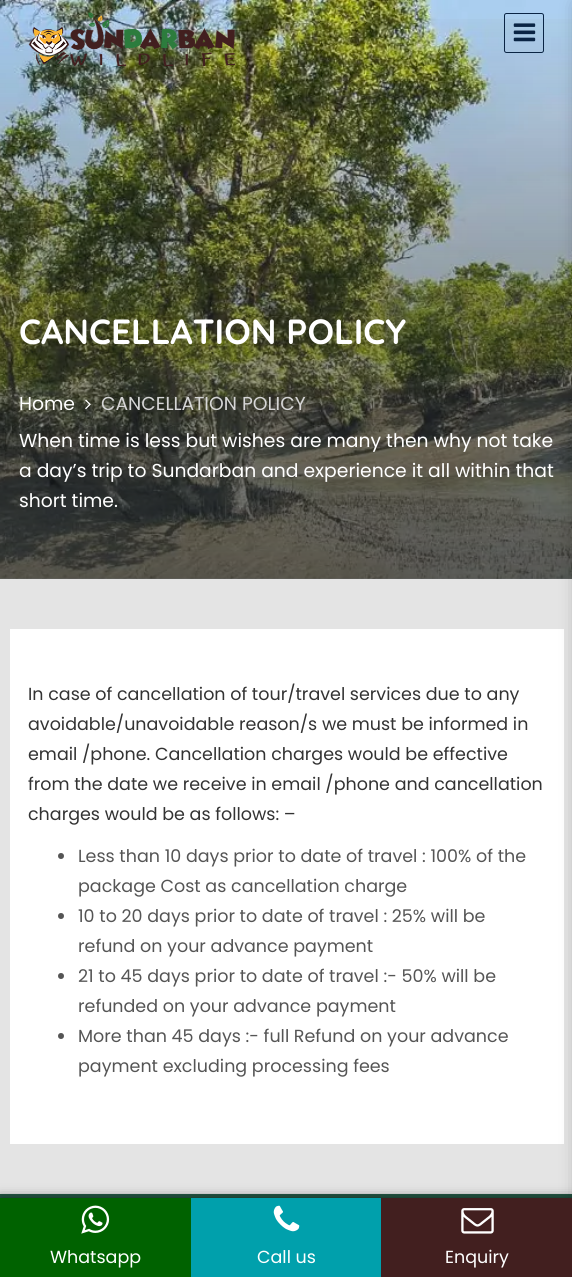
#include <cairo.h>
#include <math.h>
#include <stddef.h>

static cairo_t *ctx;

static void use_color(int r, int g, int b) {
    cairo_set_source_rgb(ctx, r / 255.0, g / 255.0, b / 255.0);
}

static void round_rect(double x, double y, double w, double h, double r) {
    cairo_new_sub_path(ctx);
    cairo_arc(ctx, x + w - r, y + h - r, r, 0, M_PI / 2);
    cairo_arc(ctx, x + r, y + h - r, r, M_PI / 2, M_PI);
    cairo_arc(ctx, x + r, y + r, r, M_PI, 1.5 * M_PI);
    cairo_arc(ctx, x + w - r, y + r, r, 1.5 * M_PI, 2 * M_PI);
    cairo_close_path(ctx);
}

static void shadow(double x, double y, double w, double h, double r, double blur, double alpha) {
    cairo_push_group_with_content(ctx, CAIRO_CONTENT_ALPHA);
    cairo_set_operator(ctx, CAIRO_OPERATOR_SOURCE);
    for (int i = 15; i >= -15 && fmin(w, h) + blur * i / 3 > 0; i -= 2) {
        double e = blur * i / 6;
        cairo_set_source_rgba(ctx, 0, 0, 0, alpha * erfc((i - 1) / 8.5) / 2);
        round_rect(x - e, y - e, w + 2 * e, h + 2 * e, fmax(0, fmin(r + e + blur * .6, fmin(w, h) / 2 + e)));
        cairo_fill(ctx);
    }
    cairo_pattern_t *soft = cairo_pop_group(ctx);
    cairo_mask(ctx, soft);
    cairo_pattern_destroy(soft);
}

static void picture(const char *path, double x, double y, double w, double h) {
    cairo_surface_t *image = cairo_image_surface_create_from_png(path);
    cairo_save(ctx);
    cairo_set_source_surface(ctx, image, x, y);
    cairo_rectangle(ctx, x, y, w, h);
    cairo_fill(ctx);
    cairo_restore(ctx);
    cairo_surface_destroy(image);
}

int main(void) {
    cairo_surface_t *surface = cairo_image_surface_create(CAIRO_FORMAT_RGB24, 572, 1277);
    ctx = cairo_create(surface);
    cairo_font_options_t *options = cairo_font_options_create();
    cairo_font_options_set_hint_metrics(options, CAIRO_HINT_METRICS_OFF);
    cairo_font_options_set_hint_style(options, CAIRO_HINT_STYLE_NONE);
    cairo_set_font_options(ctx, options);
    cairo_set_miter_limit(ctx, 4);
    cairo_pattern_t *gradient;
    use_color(255, 255, 255);
    cairo_paint(ctx);
    picture("img3.png", 0, 0, 572, 579);
    gradient = cairo_pattern_create_linear(286, 868, 286, 0);
    cairo_pattern_add_color_stop_rgba(gradient, 0, 0.114, 0.141, 0.165, 1);
    cairo_pattern_add_color_stop_rgba(gradient, 1, 0.114, 0.141, 0.165, 0);
    cairo_set_source(ctx, gradient);
    cairo_pattern_destroy(gradient);
    cairo_rectangle(ctx, 0, 19, 572, 560);
    cairo_fill(ctx);
    picture("img1.png", 28, 12, 207, 55);
    round_rect(504.5, 13.5, 39, 39, 2);
    use_color(10, 36, 68);
    cairo_set_line_width(ctx, 1);
    cairo_stroke(ctx);
    picture("img2.png", 513, 23, 23, 19);
    use_color(228, 228, 228);
    cairo_rectangle(ctx, 0, 579, 572, 615);
    cairo_fill(ctx);
    use_color(255, 255, 255);
    cairo_rectangle(ctx, 10, 629, 554, 515);
    cairo_fill(ctx);
    use_color(37, 89, 70);
    cairo_rectangle(ctx, 0, 1194, 572, 4);
    cairo_fill(ctx);
    use_color(0, 0, 0);
    shadow(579, 5, 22, 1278, 0, 9.5, 0.32);
    cairo_select_font_face(ctx, "Quicksand", CAIRO_FONT_SLANT_NORMAL, CAIRO_FONT_WEIGHT_BOLD);
    cairo_set_font_size(ctx, 35);
    use_color(255, 255, 255);
    cairo_move_to(ctx, 19, 344);
    cairo_show_text(ctx, "CANCELLATION POLICY");
    cairo_select_font_face(ctx, "Poppins", CAIRO_FONT_SLANT_NORMAL, CAIRO_FONT_WEIGHT_NORMAL);
    cairo_set_font_size(ctx, 18.75);
    cairo_move_to(ctx, 19, 410);
    cairo_show_text(ctx, "Home");
    picture("img4.png", 85, 399, 6, 11);
    use_color(214, 214, 214);
    cairo_move_to(ctx, 101, 410);
    cairo_show_text(ctx, "CANCELLATION POLICY");
    use_color(255, 255, 255);
    cairo_move_to(ctx, 19, 447);
    cairo_show_text(ctx, "When time is less but wishes are many then why not take");
    cairo_move_to(ctx, 19, 477);
    cairo_show_text(ctx, "a day’s trip to Sundarban and experience it all within that");
    cairo_move_to(ctx, 19, 507);
    cairo_show_text(ctx, "short time.");
    cairo_set_font_size(ctx, 17.5);
    use_color(51, 51, 51);
    cairo_move_to(ctx, 28, 700);
    cairo_show_text(ctx, "In case of cancellation of tour/travel services due to any");
    cairo_move_to(ctx, 28, 730);
    cairo_show_text(ctx, "avoidable/unavoidable reason/s we must be informed in");
    cairo_move_to(ctx, 28, 760);
    cairo_show_text(ctx, "email /phone. Cancellation charges would be effective");
    cairo_move_to(ctx, 28, 790);
    cairo_show_text(ctx, "from the date we receive in email /phone and cancellation");
    cairo_move_to(ctx, 28, 820);
    cairo_show_text(ctx, "charges would be as follows: –");
    use_color(85, 85, 85);
    cairo_new_path(ctx);
    cairo_arc(ctx, 61, 856, 3, 0, 2 * M_PI);
    cairo_fill(ctx);
    cairo_move_to(ctx, 78, 862);
    cairo_show_text(ctx, "Less than 10 days prior to date of travel : 100% of the");
    cairo_move_to(ctx, 78, 892);
    cairo_show_text(ctx, "package Cost as cancellation charge");
    cairo_new_path(ctx);
    cairo_arc(ctx, 61, 916, 3, 0, 2 * M_PI);
    cairo_fill(ctx);
    cairo_move_to(ctx, 78, 922);
    cairo_show_text(ctx, "10 to 20 days prior to date of travel : 25% will be");
    cairo_move_to(ctx, 78, 952);
    cairo_show_text(ctx, "refund on your advance payment");
    cairo_new_path(ctx);
    cairo_arc(ctx, 61, 976, 3, 0, 2 * M_PI);
    cairo_fill(ctx);
    cairo_move_to(ctx, 78, 982);
    cairo_show_text(ctx, "21 to 45 days prior to date of travel :- 50% will be");
    cairo_move_to(ctx, 78, 1012);
    cairo_show_text(ctx, "refunded on your advance payment");
    cairo_new_path(ctx);
    cairo_arc(ctx, 61, 1036, 3, 0, 2 * M_PI);
    cairo_fill(ctx);
    cairo_move_to(ctx, 78, 1042);
    cairo_show_text(ctx, "More than 45 days :- full Refund on your advance");
    cairo_move_to(ctx, 78, 1072);
    cairo_show_text(ctx, "payment excluding processing fees");
    use_color(0, 0, 0);
    shadow(0, 1198, 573, 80, 0, 6, 0.5);
    use_color(0, 98, 0);
    cairo_rectangle(ctx, 0, 1198, 191, 79);
    cairo_fill(ctx);
    picture("img5.png", 81, 1205, 29, 29);
    use_color(255, 255, 255);
    cairo_move_to(ctx, 50, 1263);
    cairo_show_text(ctx, "Whatsapp");
    use_color(0, 160, 172);
    cairo_rectangle(ctx, 191, 1198, 190, 79);
    cairo_fill(ctx);
    picture("img6.png", 273, 1205, 27, 27);
    use_color(255, 255, 255);
    cairo_move_to(ctx, 257, 1263);
    cairo_show_text(ctx, "Call us");
    use_color(66, 31, 31);
    cairo_rectangle(ctx, 381, 1198, 191, 79);
    cairo_fill(ctx);
    picture("img7.png", 461, 1208, 33, 26);
    use_color(255, 255, 255);
    cairo_move_to(ctx, 445, 1263);
    cairo_show_text(ctx, "Enquiry");
    cairo_surface_write_to_png(surface, "result.png");
    cairo_font_options_destroy(options);
    cairo_destroy(ctx);
    cairo_surface_destroy(surface);
    return 0;
}
